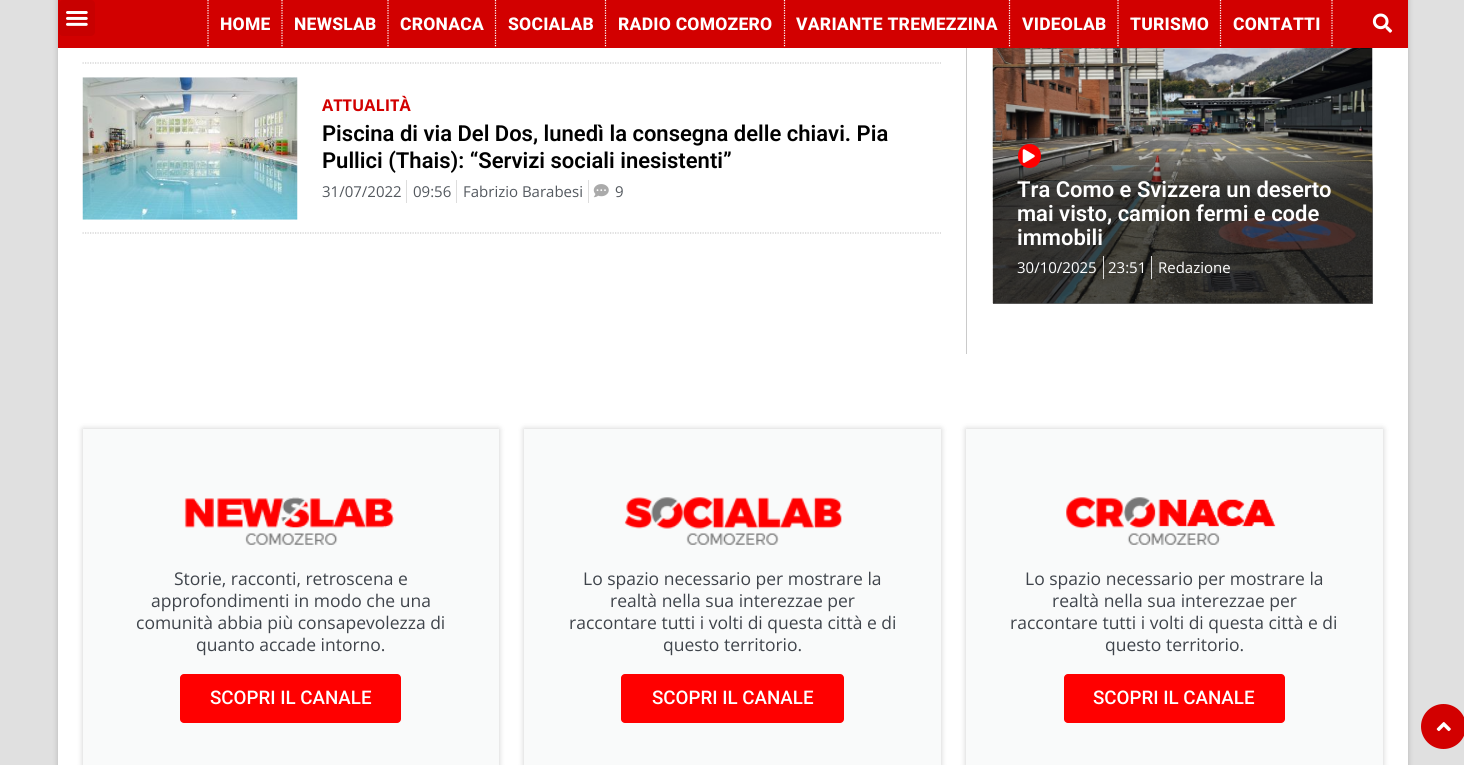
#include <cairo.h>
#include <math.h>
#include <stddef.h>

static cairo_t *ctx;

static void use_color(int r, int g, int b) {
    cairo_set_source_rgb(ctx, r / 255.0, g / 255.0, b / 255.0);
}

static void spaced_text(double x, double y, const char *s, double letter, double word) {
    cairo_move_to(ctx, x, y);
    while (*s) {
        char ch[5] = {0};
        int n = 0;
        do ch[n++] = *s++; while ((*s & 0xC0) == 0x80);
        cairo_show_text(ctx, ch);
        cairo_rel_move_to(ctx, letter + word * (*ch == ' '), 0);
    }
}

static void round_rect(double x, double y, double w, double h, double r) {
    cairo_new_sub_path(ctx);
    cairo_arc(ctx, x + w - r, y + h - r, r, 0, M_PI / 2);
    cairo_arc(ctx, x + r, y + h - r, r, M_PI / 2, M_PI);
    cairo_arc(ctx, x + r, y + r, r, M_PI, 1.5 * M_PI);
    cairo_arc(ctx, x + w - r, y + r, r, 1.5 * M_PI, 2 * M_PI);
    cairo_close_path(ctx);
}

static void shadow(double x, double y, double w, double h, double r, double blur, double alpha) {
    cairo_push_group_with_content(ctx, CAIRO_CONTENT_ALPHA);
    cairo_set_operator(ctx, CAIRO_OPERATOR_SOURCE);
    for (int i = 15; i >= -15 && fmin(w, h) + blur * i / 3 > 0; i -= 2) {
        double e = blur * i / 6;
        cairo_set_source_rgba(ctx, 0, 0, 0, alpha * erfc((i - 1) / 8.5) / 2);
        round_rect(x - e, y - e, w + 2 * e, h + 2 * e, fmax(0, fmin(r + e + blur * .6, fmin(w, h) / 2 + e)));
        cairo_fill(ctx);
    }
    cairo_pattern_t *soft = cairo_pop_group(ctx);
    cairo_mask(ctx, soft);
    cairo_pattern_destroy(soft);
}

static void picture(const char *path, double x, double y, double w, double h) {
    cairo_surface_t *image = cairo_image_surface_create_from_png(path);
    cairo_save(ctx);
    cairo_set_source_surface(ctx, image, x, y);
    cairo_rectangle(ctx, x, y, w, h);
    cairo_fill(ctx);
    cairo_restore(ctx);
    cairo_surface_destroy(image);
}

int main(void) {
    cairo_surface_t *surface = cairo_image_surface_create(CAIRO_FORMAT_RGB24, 1464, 765);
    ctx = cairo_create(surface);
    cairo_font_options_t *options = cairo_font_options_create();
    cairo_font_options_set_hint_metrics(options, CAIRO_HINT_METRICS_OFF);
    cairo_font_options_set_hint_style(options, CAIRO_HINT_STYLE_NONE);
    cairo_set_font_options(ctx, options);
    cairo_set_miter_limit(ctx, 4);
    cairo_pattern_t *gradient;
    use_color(224, 224, 224);
    cairo_paint(ctx);
    use_color(0, 0, 0);
    shadow(58, -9, 1350, 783, 0, 3, 0.2);
    use_color(210, 0, 0);
    cairo_rectangle(ctx, 58, 0, 1350, 48);
    cairo_fill(ctx);
    use_color(200, 0, 0);
    round_rect(59, 0, 36, 36, 4);
    cairo_fill(ctx);
    picture("img1.png", 66, 11, 22, 15);
    cairo_new_path(ctx);
    cairo_move_to(ctx, 208, 0);
    cairo_line_to(ctx, 208, 47.5);
    use_color(255, 255, 255);
    cairo_set_line_width(ctx, 1.2);
    cairo_set_dash(ctx, (double[]){1.25, 1.25}, 2, 0);
    cairo_stroke(ctx);
    cairo_new_path(ctx);
    cairo_move_to(ctx, 282, 0);
    cairo_line_to(ctx, 282, 47.5);
    cairo_stroke(ctx);
    cairo_select_font_face(ctx, "Roboto ExtraBold", CAIRO_FONT_SLANT_NORMAL, CAIRO_FONT_WEIGHT_NORMAL);
    cairo_set_font_size(ctx, 17.5);
    spaced_text(220, 30, "HOME", 0.25, 0);
    cairo_new_path(ctx);
    cairo_move_to(ctx, 388, 0);
    cairo_line_to(ctx, 388, 47.5);
    cairo_stroke(ctx);
    spaced_text(294, 30, "NEWSLAB", 0.25, 0);
    cairo_new_path(ctx);
    cairo_move_to(ctx, 495.5, 0);
    cairo_line_to(ctx, 495.5, 47.5);
    cairo_stroke(ctx);
    spaced_text(400, 30, "CRONACA", 0.25, 0);
    cairo_new_path(ctx);
    cairo_move_to(ctx, 605.5, 0);
    cairo_line_to(ctx, 605.5, 47.5);
    cairo_stroke(ctx);
    spaced_text(508, 30, "SOCIALAB", 0.25, 0);
    cairo_new_path(ctx);
    cairo_move_to(ctx, 784.5, 0);
    cairo_line_to(ctx, 784.5, 47.5);
    cairo_stroke(ctx);
    spaced_text(618, 30, "RADIO COMOZERO", 0.25, 0);
    cairo_new_path(ctx);
    cairo_move_to(ctx, 1009.5, 0);
    cairo_line_to(ctx, 1009.5, 47.5);
    cairo_stroke(ctx);
    spaced_text(796, 30, "VARIANTE TREMEZZINA", 0.25, 0);
    cairo_new_path(ctx);
    cairo_move_to(ctx, 1118, 0);
    cairo_line_to(ctx, 1118, 47.5);
    cairo_stroke(ctx);
    spaced_text(1022, 30, "VIDEOLAB", 0.25, 0);
    cairo_new_path(ctx);
    cairo_move_to(ctx, 1220.5, 0);
    cairo_line_to(ctx, 1220.5, 47.5);
    cairo_stroke(ctx);
    spaced_text(1130, 30, "TURISMO", 0.25, 0);
    cairo_new_path(ctx);
    cairo_move_to(ctx, 1332, 0);
    cairo_line_to(ctx, 1332, 47.5);
    cairo_stroke(ctx);
    spaced_text(1233, 30, "CONTATTI", 0.25, 0);
    picture("img2.png", 1372, 13, 21, 20);
    use_color(210, 0, 0);
    cairo_arc(ctx, 1443.5, 726.5, 22.5, 0, 2 * M_PI);
    cairo_fill(ctx);
    picture("img3.png", 1436, 722, 15, 10);
    use_color(255, 255, 255);
    cairo_rectangle(ctx, 58, 48, 1350, 717);
    cairo_fill(ctx);
    cairo_new_path(ctx);
    cairo_move_to(ctx, 82.5, 63);
    cairo_line_to(ctx, 941, 63);
    use_color(204, 204, 204);
    cairo_stroke(ctx);
    picture("img4.png", 82, 77, 216, 143);
    cairo_select_font_face(ctx, "Open Sans", CAIRO_FONT_SLANT_NORMAL, CAIRO_FONT_WEIGHT_BOLD);
    cairo_set_font_size(ctx, 16.25);
    use_color(210, 0, 0);
    cairo_move_to(ctx, 322, 111);
    cairo_show_text(ctx, "ATTUALITÀ");
    cairo_select_font_face(ctx, "Roboto SemiBold", CAIRO_FONT_SLANT_NORMAL, CAIRO_FONT_WEIGHT_NORMAL);
    cairo_set_font_size(ctx, 22);
    use_color(0, 0, 0);
    cairo_move_to(ctx, 322, 141);
    cairo_show_text(ctx, "Piscina di via Del Dos, lunedì la consegna delle chiavi. Pia");
    cairo_move_to(ctx, 322, 168);
    cairo_show_text(ctx, "Pullici (Thais): “Servizi sociali inesistenti”");
    cairo_select_font_face(ctx, "Open Sans", CAIRO_FONT_SLANT_NORMAL, CAIRO_FONT_WEIGHT_NORMAL);
    cairo_set_font_size(ctx, 15);
    use_color(84, 89, 95);
    cairo_move_to(ctx, 322, 197);
    cairo_show_text(ctx, "31/07/2022");
    use_color(221, 221, 221);
    cairo_rectangle(ctx, 406, 180, 1, 23);
    cairo_fill(ctx);
    use_color(84, 89, 95);
    cairo_move_to(ctx, 413, 197);
    cairo_show_text(ctx, "09:56");
    use_color(221, 221, 221);
    cairo_rectangle(ctx, 456, 180, 1, 23);
    cairo_fill(ctx);
    use_color(84, 89, 95);
    cairo_move_to(ctx, 463, 197);
    cairo_show_text(ctx, "Fabrizio Barabesi");
    use_color(221, 221, 221);
    cairo_rectangle(ctx, 588, 180, 1, 23);
    cairo_fill(ctx);
    picture("img5.png", 593, 184, 16, 14);
    use_color(84, 89, 95);
    cairo_move_to(ctx, 615, 197);
    cairo_show_text(ctx, "9");
    cairo_new_path(ctx);
    cairo_move_to(ctx, 82.5, 233);
    cairo_line_to(ctx, 941, 233);
    use_color(204, 204, 204);
    cairo_stroke(ctx);
    use_color(202, 202, 202);
    cairo_rectangle(ctx, 966, 48, 1, 306);
    cairo_fill(ctx);
    picture("img6.png", 992, 48, 381, 256);
    gradient = cairo_pattern_create_linear(1183, 144, 1183, 304);
    cairo_pattern_add_color_stop_rgba(gradient, 0, 0, 0, 0, 0);
    cairo_pattern_add_color_stop_rgba(gradient, 0.3, 0, 0, 0, 0.6);
    cairo_set_source(ctx, gradient);
    cairo_pattern_destroy(gradient);
    cairo_rectangle(ctx, 993, 146, 380, 158);
    cairo_fill(ctx);
    use_color(255, 0, 0);
    round_rect(1018, 144, 23, 24, 11.5);
    cairo_fill(ctx);
    picture("img7.png", 1022, 149, 13, 14);
    cairo_select_font_face(ctx, "Roboto SemiBold", CAIRO_FONT_SLANT_NORMAL, CAIRO_FONT_WEIGHT_NORMAL);
    cairo_set_font_size(ctx, 22);
    use_color(255, 255, 255);
    cairo_move_to(ctx, 1017, 197);
    cairo_show_text(ctx, "Tra Como e Svizzera un deserto");
    cairo_move_to(ctx, 1017, 221);
    cairo_show_text(ctx, "mai visto, camion fermi e code");
    cairo_move_to(ctx, 1017, 245);
    cairo_show_text(ctx, "immobili");
    cairo_select_font_face(ctx, "Open Sans", CAIRO_FONT_SLANT_NORMAL, CAIRO_FONT_WEIGHT_NORMAL);
    cairo_set_font_size(ctx, 15);
    cairo_move_to(ctx, 1017, 273);
    cairo_show_text(ctx, "30/10/2025");
    use_color(221, 221, 221);
    cairo_rectangle(ctx, 1103, 256, 1, 23);
    cairo_fill(ctx);
    use_color(255, 255, 255);
    cairo_move_to(ctx, 1108, 273);
    cairo_show_text(ctx, "23:51");
    use_color(221, 221, 221);
    cairo_rectangle(ctx, 1151, 256, 1, 23);
    cairo_fill(ctx);
    use_color(255, 255, 255);
    cairo_move_to(ctx, 1158, 273);
    cairo_show_text(ctx, "Redazione");
    use_color(0, 0, 0);
    shadow(83, 429, 416, 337, 0, 3, 0.2);
    use_color(249, 250, 250);
    cairo_rectangle(ctx, 83, 429, 416, 336);
    cairo_fill(ctx);
    picture("img8.png", 184, 497, 210, 48);
    cairo_set_font_size(ctx, 17.5);
    use_color(63, 68, 75);
    cairo_move_to(ctx, 174, 585);
    cairo_show_text(ctx, "Storie, racconti, retroscena e");
    cairo_move_to(ctx, 151, 607);
    cairo_show_text(ctx, "approfondimenti in modo che una");
    cairo_move_to(ctx, 136, 629);
    cairo_show_text(ctx, "comunità abbia più consapevolezza di");
    cairo_move_to(ctx, 196, 651);
    cairo_show_text(ctx, "quanto accade intorno.");
    use_color(255, 0, 0);
    round_rect(180, 674, 221, 49, 4);
    cairo_fill(ctx);
    cairo_select_font_face(ctx, "Roboto Medium", CAIRO_FONT_SLANT_NORMAL, CAIRO_FONT_WEIGHT_NORMAL);
    cairo_set_font_size(ctx, 18.75);
    use_color(255, 255, 255);
    cairo_move_to(ctx, 210, 704);
    cairo_show_text(ctx, "SCOPRI IL CANALE");
    use_color(0, 0, 0);
    shadow(524, 429, 417, 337, 0, 3, 0.2);
    use_color(249, 250, 250);
    cairo_rectangle(ctx, 524, 429, 417, 336);
    cairo_fill(ctx);
    picture("img9.png", 624, 497, 218, 48);
    cairo_select_font_face(ctx, "Open Sans", CAIRO_FONT_SLANT_NORMAL, CAIRO_FONT_WEIGHT_NORMAL);
    cairo_set_font_size(ctx, 17.5);
    use_color(63, 68, 75);
    cairo_move_to(ctx, 583, 585);
    cairo_show_text(ctx, "Lo spazio necessario per mostrare la");
    cairo_move_to(ctx, 610, 607);
    cairo_show_text(ctx, "realtà nella sua interezzae per");
    cairo_move_to(ctx, 569, 629);
    cairo_show_text(ctx, "raccontare tutti i volti di questa città e di");
    cairo_move_to(ctx, 663, 651);
    cairo_show_text(ctx, "questo territorio.");
    use_color(255, 0, 0);
    round_rect(621, 674, 223, 49, 4);
    cairo_fill(ctx);
    cairo_select_font_face(ctx, "Roboto Medium", CAIRO_FONT_SLANT_NORMAL, CAIRO_FONT_WEIGHT_NORMAL);
    cairo_set_font_size(ctx, 18.75);
    use_color(255, 255, 255);
    cairo_move_to(ctx, 652, 704);
    cairo_show_text(ctx, "SCOPRI IL CANALE");
    use_color(0, 0, 0);
    shadow(966, 429, 417, 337, 0, 3, 0.2);
    use_color(249, 250, 250);
    cairo_rectangle(ctx, 966, 429, 417, 336);
    cairo_fill(ctx);
    picture("img10.png", 1066, 497, 210, 48);
    cairo_select_font_face(ctx, "Open Sans", CAIRO_FONT_SLANT_NORMAL, CAIRO_FONT_WEIGHT_NORMAL);
    cairo_set_font_size(ctx, 17.5);
    use_color(63, 68, 75);
    cairo_move_to(ctx, 1025, 585);
    cairo_show_text(ctx, "Lo spazio necessario per mostrare la");
    cairo_move_to(ctx, 1052, 607);
    cairo_show_text(ctx, "realtà nella sua interezzae per");
    cairo_move_to(ctx, 1010, 629);
    cairo_show_text(ctx, "raccontare tutti i volti di questa città e di");
    cairo_move_to(ctx, 1105, 651);
    cairo_show_text(ctx, "questo territorio.");
    use_color(255, 0, 0);
    round_rect(1064, 674, 221, 49, 4);
    cairo_fill(ctx);
    cairo_select_font_face(ctx, "Roboto Medium", CAIRO_FONT_SLANT_NORMAL, CAIRO_FONT_WEIGHT_NORMAL);
    cairo_set_font_size(ctx, 18.75);
    use_color(255, 255, 255);
    cairo_move_to(ctx, 1093, 704);
    cairo_show_text(ctx, "SCOPRI IL CANALE");
    cairo_surface_write_to_png(surface, "result.png");
    cairo_font_options_destroy(options);
    cairo_destroy(ctx);
    cairo_surface_destroy(surface);
    return 0;
}
